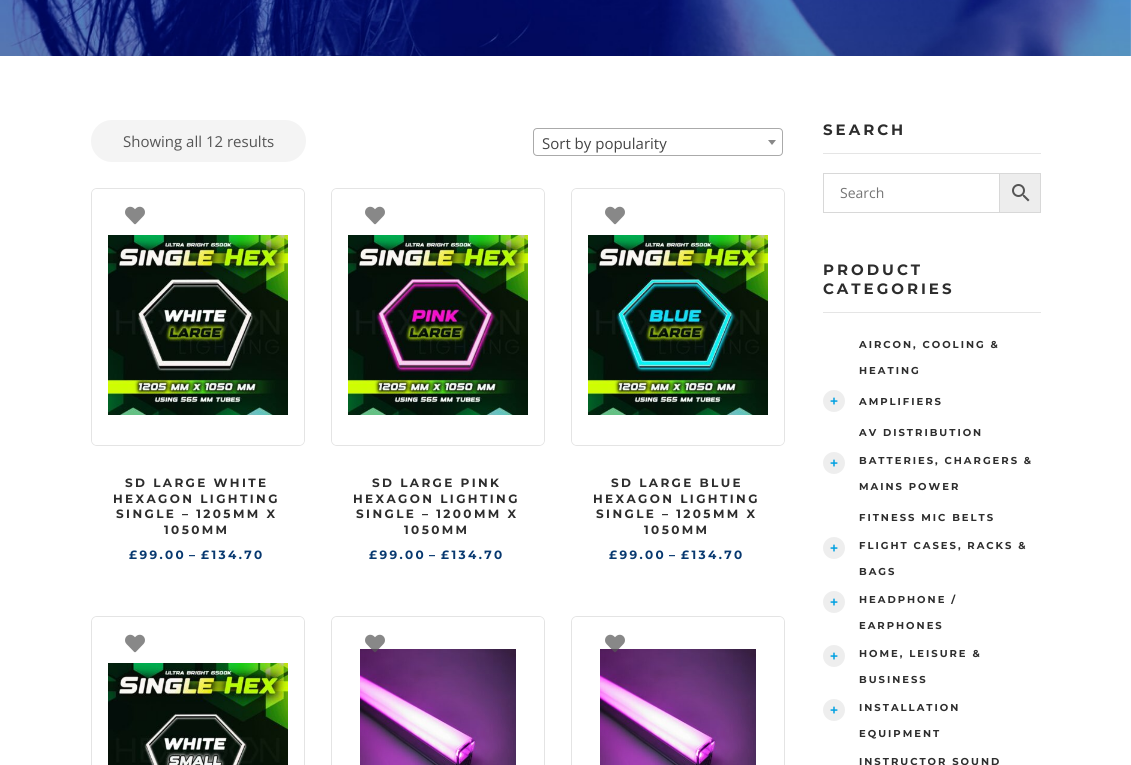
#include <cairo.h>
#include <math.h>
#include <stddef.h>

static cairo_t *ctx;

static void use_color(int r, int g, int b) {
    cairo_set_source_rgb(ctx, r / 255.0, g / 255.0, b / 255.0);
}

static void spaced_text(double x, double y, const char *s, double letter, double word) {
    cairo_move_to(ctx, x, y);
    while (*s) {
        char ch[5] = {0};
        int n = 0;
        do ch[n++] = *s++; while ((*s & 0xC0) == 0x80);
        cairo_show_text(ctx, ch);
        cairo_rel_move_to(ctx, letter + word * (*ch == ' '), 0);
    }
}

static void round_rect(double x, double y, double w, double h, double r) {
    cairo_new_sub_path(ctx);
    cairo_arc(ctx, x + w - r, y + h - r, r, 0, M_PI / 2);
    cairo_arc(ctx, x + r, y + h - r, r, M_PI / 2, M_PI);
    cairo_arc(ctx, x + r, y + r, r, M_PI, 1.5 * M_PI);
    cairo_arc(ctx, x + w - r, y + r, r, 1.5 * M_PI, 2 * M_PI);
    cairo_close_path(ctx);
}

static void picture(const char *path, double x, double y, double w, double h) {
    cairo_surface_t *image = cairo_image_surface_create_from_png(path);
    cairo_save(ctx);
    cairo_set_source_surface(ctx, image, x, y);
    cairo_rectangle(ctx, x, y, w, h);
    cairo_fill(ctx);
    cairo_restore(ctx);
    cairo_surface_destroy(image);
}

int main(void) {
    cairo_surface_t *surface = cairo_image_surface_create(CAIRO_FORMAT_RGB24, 1131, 765);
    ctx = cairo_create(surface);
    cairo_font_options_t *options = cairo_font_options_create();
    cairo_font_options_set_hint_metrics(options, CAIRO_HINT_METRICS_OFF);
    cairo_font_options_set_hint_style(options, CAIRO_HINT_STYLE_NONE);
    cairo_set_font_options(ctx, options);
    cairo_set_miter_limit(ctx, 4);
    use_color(255, 255, 255);
    cairo_paint(ctx);
    picture("img1.png", 0, 0, 1131, 56);
    use_color(244, 244, 244);
    round_rect(91, 120, 215, 42, 21);
    cairo_fill(ctx);
    cairo_select_font_face(ctx, "Open Sans", CAIRO_FONT_SLANT_NORMAL, CAIRO_FONT_WEIGHT_NORMAL);
    cairo_set_font_size(ctx, 15);
    use_color(85, 85, 85);
    cairo_move_to(ctx, 123, 147);
    cairo_show_text(ctx, "Showing all 12 results");
    round_rect(533.5, 128.5, 249, 27, 3.5);
    use_color(170, 170, 170);
    cairo_set_line_width(ctx, 1);
    cairo_stroke(ctx);
    use_color(68, 68, 68);
    cairo_move_to(ctx, 542, 149);
    cairo_show_text(ctx, "Sort by popularity");
    use_color(136, 136, 136);
    cairo_new_path(ctx);
    cairo_move_to(ctx, 768, 140);
    cairo_line_to(ctx, 776, 140);
    cairo_line_to(ctx, 772, 145);
    cairo_close_path(ctx);
    cairo_fill(ctx);
    round_rect(91.5, 188.5, 213, 257, 5.5);
    use_color(228, 228, 228);
    cairo_stroke(ctx);
    use_color(255, 255, 255);
    round_rect(92, 189, 212, 256, 5);
    cairo_fill(ctx);
    picture("img2.png", 108, 235, 180, 180);
    picture("img3.png", 125, 206, 20, 19);
    cairo_select_font_face(ctx, "Montserrat", CAIRO_FONT_SLANT_NORMAL, CAIRO_FONT_WEIGHT_BOLD);
    cairo_set_font_size(ctx, 12);
    use_color(45, 45, 45);
    spaced_text(125, 487, "SD LARGE WHITE", 2.4, 0);
    spaced_text(113, 503, "HEXAGON LIGHTING", 2.4, 0);
    spaced_text(116, 518, "SINGLE – 1205MM X", 2.4, 0);
    spaced_text(164, 534, "1050MM", 2.4, 0);
    use_color(7, 56, 111);
    spaced_text(129, 559, "£99.00", 2.4, 0);
    spaced_text(189, 559, "–", 2.4, 0);
    spaced_text(201, 559, "£134.70", 2.4, 0);
    round_rect(331.5, 188.5, 213, 257, 5.5);
    use_color(228, 228, 228);
    cairo_stroke(ctx);
    use_color(255, 255, 255);
    round_rect(332, 189, 212, 256, 5);
    cairo_fill(ctx);
    picture("img4.png", 348, 235, 180, 180);
    picture("img3.png", 365, 206, 20, 19);
    use_color(45, 45, 45);
    spaced_text(372, 487, "SD LARGE PINK", 2.4, 0);
    spaced_text(353, 503, "HEXAGON LIGHTING", 2.4, 0);
    spaced_text(356, 518, "SINGLE – 1200MM X", 2.4, 0);
    spaced_text(404, 534, "1050MM", 2.4, 0);
    use_color(7, 56, 111);
    spaced_text(369, 559, "£99.00", 2.4, 0);
    spaced_text(429, 559, "–", 2.4, 0);
    spaced_text(441, 559, "£134.70", 2.4, 0);
    round_rect(571.5, 188.5, 213, 257, 5.5);
    use_color(228, 228, 228);
    cairo_stroke(ctx);
    use_color(255, 255, 255);
    round_rect(572, 189, 212, 256, 5);
    cairo_fill(ctx);
    picture("img5.png", 588, 235, 180, 180);
    picture("img3.png", 605, 206, 20, 19);
    use_color(45, 45, 45);
    spaced_text(611, 487, "SD LARGE BLUE", 2.4, 0);
    spaced_text(593, 503, "HEXAGON LIGHTING", 2.4, 0);
    spaced_text(596, 518, "SINGLE – 1205MM X", 2.4, 0);
    spaced_text(644, 534, "1050MM", 2.4, 0);
    use_color(7, 56, 111);
    spaced_text(609, 559, "£99.00", 2.4, 0);
    spaced_text(669, 559, "–", 2.4, 0);
    spaced_text(681, 559, "£134.70", 2.4, 0);
    round_rect(91.5, 616.5, 213, 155, 5.5);
    use_color(228, 228, 228);
    cairo_stroke(ctx);
    use_color(255, 255, 255);
    round_rect(92, 617, 212, 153, 5);
    cairo_fill(ctx);
    picture("img6.png", 108, 663, 180, 102);
    picture("img3.png", 125, 634, 20, 19);
    round_rect(331.5, 616.5, 213, 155, 5.5);
    use_color(228, 228, 228);
    cairo_stroke(ctx);
    use_color(255, 255, 255);
    round_rect(332, 617, 212, 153, 5);
    cairo_fill(ctx);
    picture("img7.png", 360, 649, 156, 116);
    picture("img8.png", 365, 634, 20, 19);
    round_rect(571.5, 616.5, 213, 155, 5.5);
    use_color(228, 228, 228);
    cairo_stroke(ctx);
    use_color(255, 255, 255);
    round_rect(572, 617, 212, 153, 5);
    cairo_fill(ctx);
    picture("img9.png", 600, 649, 156, 116);
    picture("img10.png", 605, 634, 20, 19);
    use_color(229, 229, 229);
    cairo_rectangle(ctx, 823, 153, 218, 1);
    cairo_fill(ctx);
    cairo_set_font_size(ctx, 15);
    use_color(45, 45, 45);
    spaced_text(823, 135, "SEARCH", 3, 0);
    use_color(237, 237, 237);
    cairo_rectangle(ctx, 999.5, 173.5, 41, 39);
    cairo_fill_preserve(ctx);
    use_color(216, 216, 216);
    cairo_stroke(ctx);
    cairo_rectangle(ctx, 823.5, 173.5, 176, 39);
    cairo_stroke(ctx);
    cairo_select_font_face(ctx, "Open Sans", CAIRO_FONT_SLANT_NORMAL, CAIRO_FONT_WEIGHT_NORMAL);
    cairo_set_font_size(ctx, 14);
    use_color(117, 117, 117);
    cairo_move_to(ctx, 840, 198);
    cairo_show_text(ctx, "Search");
    picture("img11.png", 1012, 184, 18, 18);
    use_color(229, 229, 229);
    cairo_rectangle(ctx, 823, 312, 218, 1);
    cairo_fill(ctx);
    cairo_select_font_face(ctx, "Montserrat", CAIRO_FONT_SLANT_NORMAL, CAIRO_FONT_WEIGHT_BOLD);
    cairo_set_font_size(ctx, 15);
    use_color(45, 45, 45);
    spaced_text(823, 275, "PRODUCT", 3, 0);
    spaced_text(823, 294, "CATEGORIES", 3, 0);
    cairo_set_font_size(ctx, 10);
    spaced_text(859, 348, "AIRCON, COOLING &", 2, 0);
    spaced_text(859, 374, "HEATING", 2, 0);
    use_color(238, 238, 238);
    cairo_new_path(ctx);
    cairo_arc(ctx, 834, 401, 11, 0, 2 * M_PI);
    cairo_fill(ctx);
    cairo_select_font_face(ctx, "Open Sans", CAIRO_FONT_SLANT_NORMAL, CAIRO_FONT_WEIGHT_BOLD);
    cairo_set_font_size(ctx, 14);
    use_color(0, 160, 225);
    cairo_move_to(ctx, 830, 406);
    cairo_show_text(ctx, "+");
    cairo_select_font_face(ctx, "Montserrat", CAIRO_FONT_SLANT_NORMAL, CAIRO_FONT_WEIGHT_BOLD);
    cairo_set_font_size(ctx, 10);
    use_color(45, 45, 45);
    spaced_text(859, 405, "AMPLIFIERS", 2, 0);
    spaced_text(859, 436, "AV DISTRIBUTION", 2, 0);
    use_color(238, 238, 238);
    cairo_new_path(ctx);
    cairo_arc(ctx, 834, 463, 11, 0, 2 * M_PI);
    cairo_fill(ctx);
    cairo_select_font_face(ctx, "Open Sans", CAIRO_FONT_SLANT_NORMAL, CAIRO_FONT_WEIGHT_BOLD);
    cairo_set_font_size(ctx, 14);
    use_color(0, 160, 225);
    cairo_move_to(ctx, 830, 468);
    cairo_show_text(ctx, "+");
    cairo_select_font_face(ctx, "Montserrat", CAIRO_FONT_SLANT_NORMAL, CAIRO_FONT_WEIGHT_BOLD);
    cairo_set_font_size(ctx, 10);
    use_color(45, 45, 45);
    spaced_text(859, 464, "BATTERIES, CHARGERS &", 2, 0);
    spaced_text(859, 490, "MAINS POWER", 2, 0);
    spaced_text(859, 521, "FITNESS MIC BELTS", 2, 0);
    use_color(238, 238, 238);
    cairo_new_path(ctx);
    cairo_arc(ctx, 834, 548, 11, 0, 2 * M_PI);
    cairo_fill(ctx);
    cairo_select_font_face(ctx, "Open Sans", CAIRO_FONT_SLANT_NORMAL, CAIRO_FONT_WEIGHT_BOLD);
    cairo_set_font_size(ctx, 14);
    use_color(0, 160, 225);
    cairo_move_to(ctx, 830, 553);
    cairo_show_text(ctx, "+");
    cairo_select_font_face(ctx, "Montserrat", CAIRO_FONT_SLANT_NORMAL, CAIRO_FONT_WEIGHT_BOLD);
    cairo_set_font_size(ctx, 10);
    use_color(45, 45, 45);
    spaced_text(859, 549, "FLIGHT CASES, RACKS &", 2, 0);
    spaced_text(859, 575, "BAGS", 2, 0);
    use_color(238, 238, 238);
    cairo_new_path(ctx);
    cairo_arc(ctx, 834, 602, 11, 0, 2 * M_PI);
    cairo_fill(ctx);
    cairo_select_font_face(ctx, "Open Sans", CAIRO_FONT_SLANT_NORMAL, CAIRO_FONT_WEIGHT_BOLD);
    cairo_set_font_size(ctx, 14);
    use_color(0, 160, 225);
    cairo_move_to(ctx, 830, 607);
    cairo_show_text(ctx, "+");
    cairo_select_font_face(ctx, "Montserrat", CAIRO_FONT_SLANT_NORMAL, CAIRO_FONT_WEIGHT_BOLD);
    cairo_set_font_size(ctx, 10);
    use_color(45, 45, 45);
    spaced_text(859, 603, "HEADPHONE /", 2, 0);
    spaced_text(859, 629, "EARPHONES", 2, 0);
    use_color(238, 238, 238);
    cairo_new_path(ctx);
    cairo_arc(ctx, 834, 656, 11, 0, 2 * M_PI);
    cairo_fill(ctx);
    cairo_select_font_face(ctx, "Open Sans", CAIRO_FONT_SLANT_NORMAL, CAIRO_FONT_WEIGHT_BOLD);
    cairo_set_font_size(ctx, 14);
    use_color(0, 160, 225);
    cairo_move_to(ctx, 830, 661);
    cairo_show_text(ctx, "+");
    cairo_select_font_face(ctx, "Montserrat", CAIRO_FONT_SLANT_NORMAL, CAIRO_FONT_WEIGHT_BOLD);
    cairo_set_font_size(ctx, 10);
    use_color(45, 45, 45);
    spaced_text(859, 657, "HOME, LEISURE &", 2, 0);
    spaced_text(859, 683, "BUSINESS", 2, 0);
    use_color(238, 238, 238);
    cairo_new_path(ctx);
    cairo_arc(ctx, 834, 710, 11, 0, 2 * M_PI);
    cairo_fill(ctx);
    cairo_select_font_face(ctx, "Open Sans", CAIRO_FONT_SLANT_NORMAL, CAIRO_FONT_WEIGHT_BOLD);
    cairo_set_font_size(ctx, 14);
    use_color(0, 160, 225);
    cairo_move_to(ctx, 830, 715);
    cairo_show_text(ctx, "+");
    cairo_select_font_face(ctx, "Montserrat", CAIRO_FONT_SLANT_NORMAL, CAIRO_FONT_WEIGHT_BOLD);
    cairo_set_font_size(ctx, 10);
    use_color(45, 45, 45);
    spaced_text(859, 711, "INSTALLATION", 2, 0);
    spaced_text(859, 737, "EQUIPMENT", 2, 0);
    spaced_text(859, 765, "INSTRUCTOR SOUND", 2, 0);
    cairo_surface_write_to_png(surface, "result.png");
    cairo_font_options_destroy(options);
    cairo_destroy(ctx);
    cairo_surface_destroy(surface);
    return 0;
}
